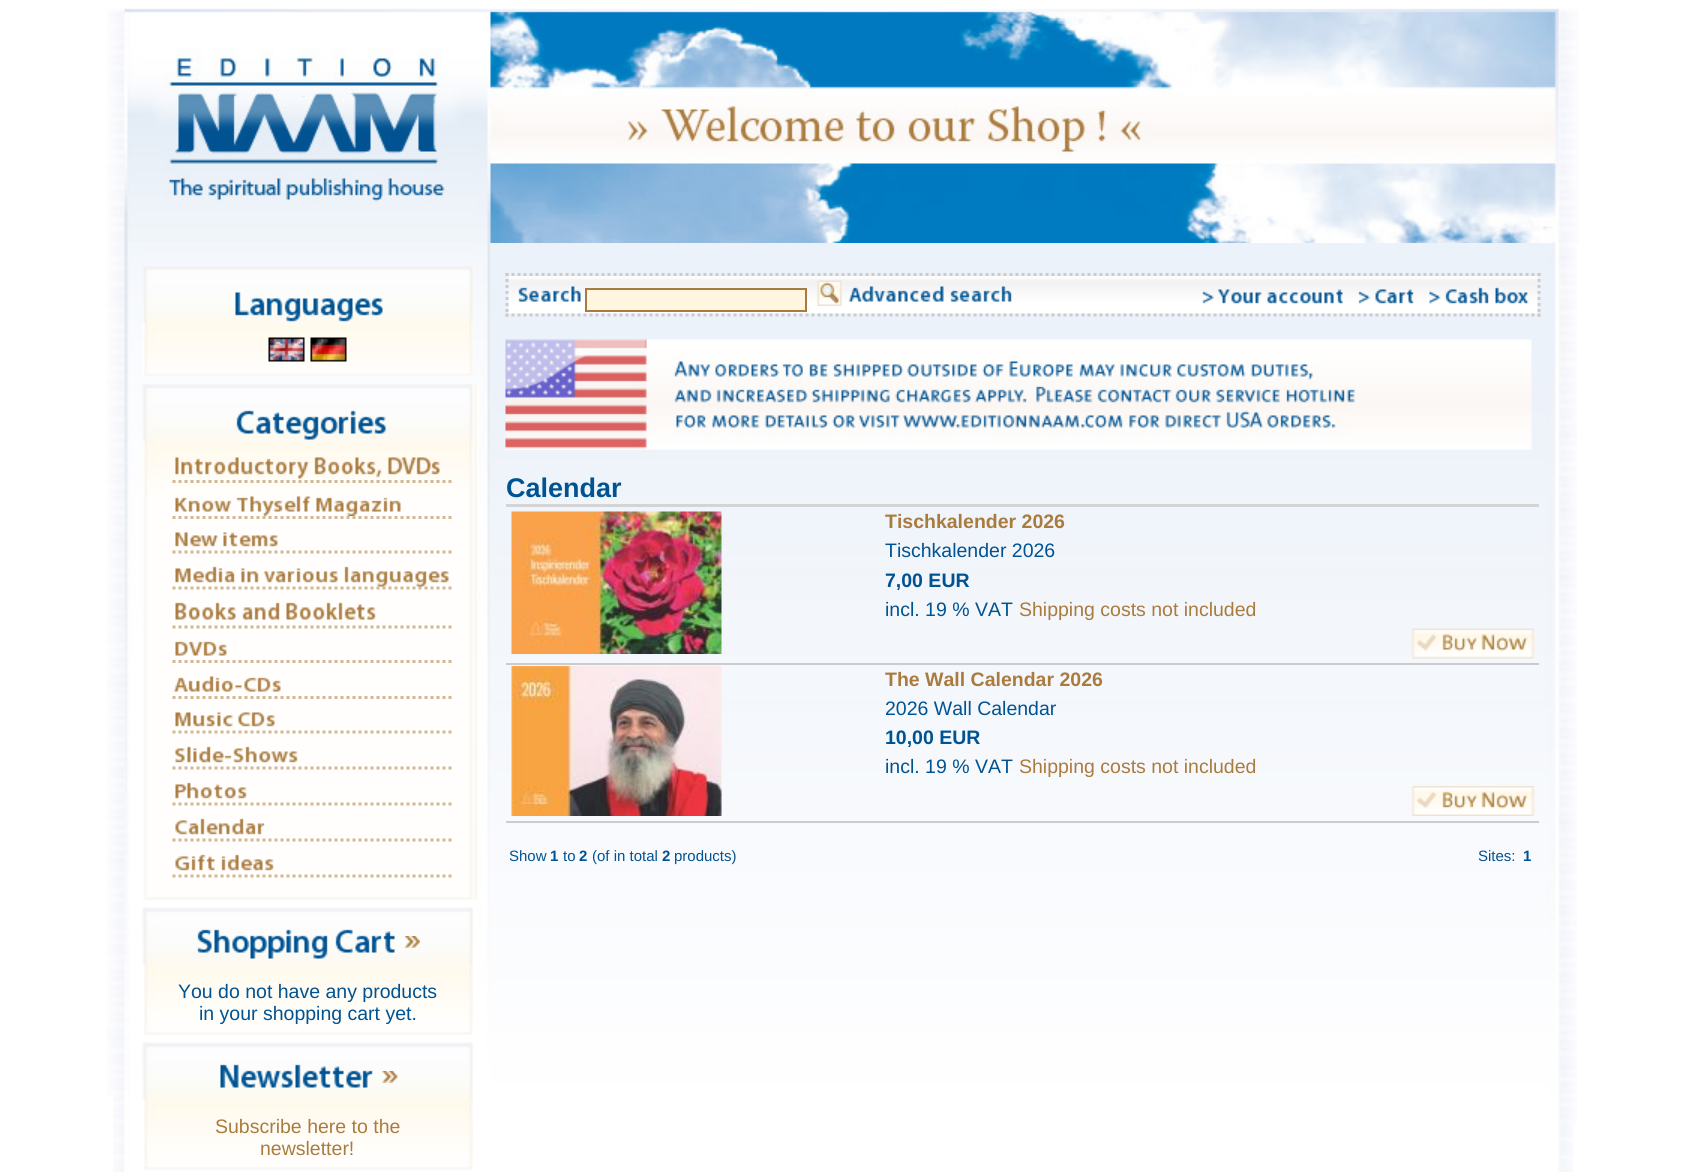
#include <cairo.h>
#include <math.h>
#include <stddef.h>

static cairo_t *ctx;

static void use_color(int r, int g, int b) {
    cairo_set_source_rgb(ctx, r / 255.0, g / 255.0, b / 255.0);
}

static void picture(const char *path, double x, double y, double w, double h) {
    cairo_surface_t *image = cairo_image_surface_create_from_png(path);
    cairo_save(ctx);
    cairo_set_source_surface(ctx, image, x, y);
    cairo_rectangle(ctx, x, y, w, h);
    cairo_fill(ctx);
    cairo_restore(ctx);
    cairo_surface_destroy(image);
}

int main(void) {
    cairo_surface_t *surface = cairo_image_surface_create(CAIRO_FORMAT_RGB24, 1685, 1172);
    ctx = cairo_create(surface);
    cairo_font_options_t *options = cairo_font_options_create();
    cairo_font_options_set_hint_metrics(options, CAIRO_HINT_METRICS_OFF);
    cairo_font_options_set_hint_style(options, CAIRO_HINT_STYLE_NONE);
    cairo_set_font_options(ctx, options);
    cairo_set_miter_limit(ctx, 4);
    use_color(255, 255, 255);
    cairo_paint(ctx);
    picture("img1.png", 107, 8, 1472, 235);
    picture("img2.png", 113, 243, 1460, 929);
    picture("img3.png", 490, 243, 1087, 882);
    picture("img4.png", 508, 276, 1030, 38);
    cairo_new_path(ctx);
    cairo_move_to(ctx, 505.5, 274.5);
    cairo_line_to(ctx, 1540.5, 274.5);
    use_color(204, 204, 204);
    cairo_set_line_width(ctx, 3);
    cairo_set_dash(ctx, (double[]){3, 3}, 2, 0);
    cairo_stroke(ctx);
    cairo_new_path(ctx);
    cairo_move_to(ctx, 1539, 273);
    cairo_line_to(ctx, 1539, 316.5);
    cairo_stroke(ctx);
    cairo_new_path(ctx);
    cairo_move_to(ctx, 505.5, 315);
    cairo_line_to(ctx, 1540.5, 315);
    cairo_stroke(ctx);
    cairo_new_path(ctx);
    cairo_move_to(ctx, 507, 273);
    cairo_line_to(ctx, 507, 316.5);
    cairo_stroke(ctx);
    picture("img5.png", 518, 286, 63, 16);
    use_color(255, 246, 224);
    cairo_rectangle(ctx, 586, 289, 220, 22);
    cairo_fill_preserve(ctx);
    use_color(170, 123, 62);
    cairo_set_line_width(ctx, 2);
    cairo_set_dash(ctx, NULL, 0, 0);
    cairo_stroke(ctx);
    use_color(255, 246, 224);
    cairo_rectangle(ctx, 841, 281, 1, 25);
    cairo_fill(ctx);
    picture("img6.png", 817, 280, 25, 26);
    picture("img7.png", 848, 286, 164, 16);
    picture("img8.png", 1202, 289, 141, 15);
    picture("img9.png", 1358, 289, 56, 15);
    picture("img10.png", 1429, 287, 100, 17);
    picture("img11.png", 505, 339, 1027, 111);
    cairo_select_font_face(ctx, "Liberation Sans", CAIRO_FONT_SLANT_NORMAL, CAIRO_FONT_WEIGHT_BOLD);
    cairo_set_font_size(ctx, 27);
    use_color(0, 83, 146);
    cairo_move_to(ctx, 506, 497);
    cairo_show_text(ctx, "Calendar");
    use_color(212, 212, 212);
    cairo_rectangle(ctx, 506, 504, 1033, 3);
    cairo_fill(ctx);
    use_color(204, 204, 204);
    cairo_rectangle(ctx, 506, 663, 1033, 2);
    cairo_fill(ctx);
    picture("img12.png", 511, 511, 211, 143);
    cairo_set_font_size(ctx, 19.5);
    use_color(170, 123, 62);
    cairo_move_to(ctx, 885, 528);
    cairo_show_text(ctx, "Tischkalender 2026");
    cairo_select_font_face(ctx, "Liberation Sans", CAIRO_FONT_SLANT_NORMAL, CAIRO_FONT_WEIGHT_NORMAL);
    use_color(0, 83, 146);
    cairo_move_to(ctx, 885, 557);
    cairo_show_text(ctx, "Tischkalender 2026");
    cairo_select_font_face(ctx, "Liberation Sans", CAIRO_FONT_SLANT_NORMAL, CAIRO_FONT_WEIGHT_BOLD);
    cairo_move_to(ctx, 885, 587);
    cairo_show_text(ctx, "7,00 EUR");
    cairo_select_font_face(ctx, "Liberation Sans", CAIRO_FONT_SLANT_NORMAL, CAIRO_FONT_WEIGHT_NORMAL);
    cairo_move_to(ctx, 885, 616);
    cairo_show_text(ctx, "incl. 19 % VAT");
    use_color(170, 123, 62);
    cairo_move_to(ctx, 1019, 616);
    cairo_show_text(ctx, "Shipping costs not included");
    picture("img13.png", 1411, 628, 124, 31);
    use_color(204, 204, 204);
    cairo_rectangle(ctx, 506, 821, 1033, 2);
    cairo_fill(ctx);
    picture("img14.png", 511, 666, 211, 150);
    cairo_select_font_face(ctx, "Liberation Sans", CAIRO_FONT_SLANT_NORMAL, CAIRO_FONT_WEIGHT_BOLD);
    use_color(170, 123, 62);
    cairo_move_to(ctx, 885, 686);
    cairo_show_text(ctx, "The Wall Calendar 2026");
    cairo_select_font_face(ctx, "Liberation Sans", CAIRO_FONT_SLANT_NORMAL, CAIRO_FONT_WEIGHT_NORMAL);
    use_color(0, 83, 146);
    cairo_move_to(ctx, 885, 715);
    cairo_show_text(ctx, "2026 Wall Calendar");
    cairo_select_font_face(ctx, "Liberation Sans", CAIRO_FONT_SLANT_NORMAL, CAIRO_FONT_WEIGHT_BOLD);
    cairo_move_to(ctx, 885, 744);
    cairo_show_text(ctx, "10,00 EUR");
    cairo_select_font_face(ctx, "Liberation Sans", CAIRO_FONT_SLANT_NORMAL, CAIRO_FONT_WEIGHT_NORMAL);
    cairo_move_to(ctx, 885, 773);
    cairo_show_text(ctx, "incl. 19 % VAT");
    use_color(170, 123, 62);
    cairo_move_to(ctx, 1019, 773);
    cairo_show_text(ctx, "Shipping costs not included");
    picture("img15.png", 1411, 786, 124, 30);
    cairo_set_font_size(ctx, 15);
    use_color(0, 83, 146);
    cairo_move_to(ctx, 509, 861);
    cairo_show_text(ctx, "Show");
    cairo_select_font_face(ctx, "Liberation Sans", CAIRO_FONT_SLANT_NORMAL, CAIRO_FONT_WEIGHT_BOLD);
    cairo_move_to(ctx, 550, 861);
    cairo_show_text(ctx, "1");
    cairo_select_font_face(ctx, "Liberation Sans", CAIRO_FONT_SLANT_NORMAL, CAIRO_FONT_WEIGHT_NORMAL);
    cairo_move_to(ctx, 563, 861);
    cairo_show_text(ctx, "to");
    cairo_select_font_face(ctx, "Liberation Sans", CAIRO_FONT_SLANT_NORMAL, CAIRO_FONT_WEIGHT_BOLD);
    cairo_move_to(ctx, 579, 861);
    cairo_show_text(ctx, "2");
    cairo_select_font_face(ctx, "Liberation Sans", CAIRO_FONT_SLANT_NORMAL, CAIRO_FONT_WEIGHT_NORMAL);
    cairo_move_to(ctx, 592, 861);
    cairo_show_text(ctx, "(of in total");
    cairo_select_font_face(ctx, "Liberation Sans", CAIRO_FONT_SLANT_NORMAL, CAIRO_FONT_WEIGHT_BOLD);
    cairo_move_to(ctx, 662, 861);
    cairo_show_text(ctx, "2");
    cairo_select_font_face(ctx, "Liberation Sans", CAIRO_FONT_SLANT_NORMAL, CAIRO_FONT_WEIGHT_NORMAL);
    cairo_move_to(ctx, 674, 861);
    cairo_show_text(ctx, "products)");
    cairo_move_to(ctx, 1478, 861);
    cairo_show_text(ctx, "Sites:");
    cairo_select_font_face(ctx, "Liberation Sans", CAIRO_FONT_SLANT_NORMAL, CAIRO_FONT_WEIGHT_BOLD);
    cairo_move_to(ctx, 1523, 861);
    cairo_show_text(ctx, "1");
    picture("img16.png", 107, 243, 384, 853);
    picture("img17.png", 142, 265, 331, 112);
    picture("img18.png", 142, 265, 331, 58);
    picture("img19.png", 235, 292, 148, 30);
    picture("img20.png", 145, 322, 328, 44);
    picture("img21.png", 268, 337, 37, 25);
    picture("img22.png", 310, 337, 37, 25);
    picture("img23.png", 147, 373, 325, 4);
    picture("img24.png", 142, 384, 337, 516);
    picture("img25.png", 142, 384, 331, 57);
    picture("img26.png", 236, 410, 150, 30);
    picture("img27.png", 145, 441, 328, 57);
    cairo_new_path(ctx);
    cairo_move_to(ctx, 172.5, 481.5);
    cairo_line_to(ctx, 451.5, 481.5);
    use_color(210, 184, 149);
    cairo_set_line_width(ctx, 3);
    cairo_set_dash(ctx, (double[]){3, 3}, 2, 0);
    cairo_stroke(ctx);
    picture("img28.png", 175, 457, 265, 22);
    cairo_new_path(ctx);
    cairo_move_to(ctx, 172.5, 517.5);
    cairo_line_to(ctx, 451.5, 517.5);
    cairo_stroke(ctx);
    picture("img29.png", 175, 496, 226, 20);
    cairo_new_path(ctx);
    cairo_move_to(ctx, 172.5, 552);
    cairo_line_to(ctx, 451.5, 552);
    cairo_stroke(ctx);
    picture("img30.png", 175, 532, 103, 15);
    cairo_new_path(ctx);
    cairo_move_to(ctx, 172.5, 588);
    cairo_line_to(ctx, 451.5, 588);
    cairo_stroke(ctx);
    picture("img31.png", 175, 566, 274, 21);
    cairo_new_path(ctx);
    cairo_move_to(ctx, 172.5, 627);
    cairo_line_to(ctx, 451.5, 627);
    cairo_stroke(ctx);
    picture("img32.png", 175, 602, 201, 18);
    cairo_new_path(ctx);
    cairo_move_to(ctx, 172.5, 661.5);
    cairo_line_to(ctx, 451.5, 661.5);
    cairo_stroke(ctx);
    picture("img33.png", 175, 641, 52, 15);
    cairo_new_path(ctx);
    cairo_move_to(ctx, 172.5, 697.5);
    cairo_line_to(ctx, 451.5, 697.5);
    cairo_stroke(ctx);
    picture("img34.png", 173, 676, 108, 16);
    cairo_new_path(ctx);
    cairo_move_to(ctx, 172.5, 732);
    cairo_line_to(ctx, 451.5, 732);
    cairo_stroke(ctx);
    picture("img35.png", 175, 712, 100, 15);
    cairo_new_path(ctx);
    cairo_move_to(ctx, 172.5, 768);
    cairo_line_to(ctx, 451.5, 768);
    cairo_stroke(ctx);
    picture("img36.png", 175, 746, 123, 17);
    cairo_new_path(ctx);
    cairo_move_to(ctx, 172.5, 804);
    cairo_line_to(ctx, 451.5, 804);
    cairo_stroke(ctx);
    picture("img37.png", 175, 782, 72, 17);
    cairo_new_path(ctx);
    cairo_move_to(ctx, 172.5, 840);
    cairo_line_to(ctx, 451.5, 840);
    cairo_stroke(ctx);
    picture("img38.png", 175, 818, 90, 17);
    cairo_new_path(ctx);
    cairo_move_to(ctx, 172.5, 876);
    cairo_line_to(ctx, 451.5, 876);
    cairo_stroke(ctx);
    picture("img39.png", 175, 854, 99, 17);
    picture("img40.png", 147, 897, 325, 3);
    picture("img41.png", 144, 907, 329, 128);
    picture("img42.png", 142, 907, 331, 58);
    picture("img43.png", 197, 929, 198, 30);
    picture("img44.png", 405, 936, 15, 12);
    picture("img45.png", 145, 964, 328, 57);
    cairo_select_font_face(ctx, "Liberation Sans", CAIRO_FONT_SLANT_NORMAL, CAIRO_FONT_WEIGHT_NORMAL);
    cairo_set_font_size(ctx, 19.5);
    use_color(0, 83, 146);
    cairo_move_to(ctx, 178, 998);
    cairo_show_text(ctx, "You do not have any products");
    cairo_move_to(ctx, 199, 1020);
    cairo_show_text(ctx, "in your shopping cart yet.");
    picture("img46.png", 143, 1029, 329, 6);
    picture("img41.png", 144, 1042, 329, 128);
    picture("img42.png", 142, 1042, 331, 58);
    picture("img47.png", 220, 1064, 153, 24);
    picture("img48.png", 382, 1071, 16, 12);
    picture("img45.png", 145, 1099, 328, 57);
    use_color(170, 123, 62);
    cairo_move_to(ctx, 215, 1133);
    cairo_show_text(ctx, "Subscribe here to the");
    cairo_move_to(ctx, 260, 1155);
    cairo_show_text(ctx, "newsletter!");
    picture("img46.png", 143, 1164, 329, 6);
    cairo_surface_write_to_png(surface, "result.png");
    cairo_font_options_destroy(options);
    cairo_destroy(ctx);
    cairo_surface_destroy(surface);
    return 0;
}
